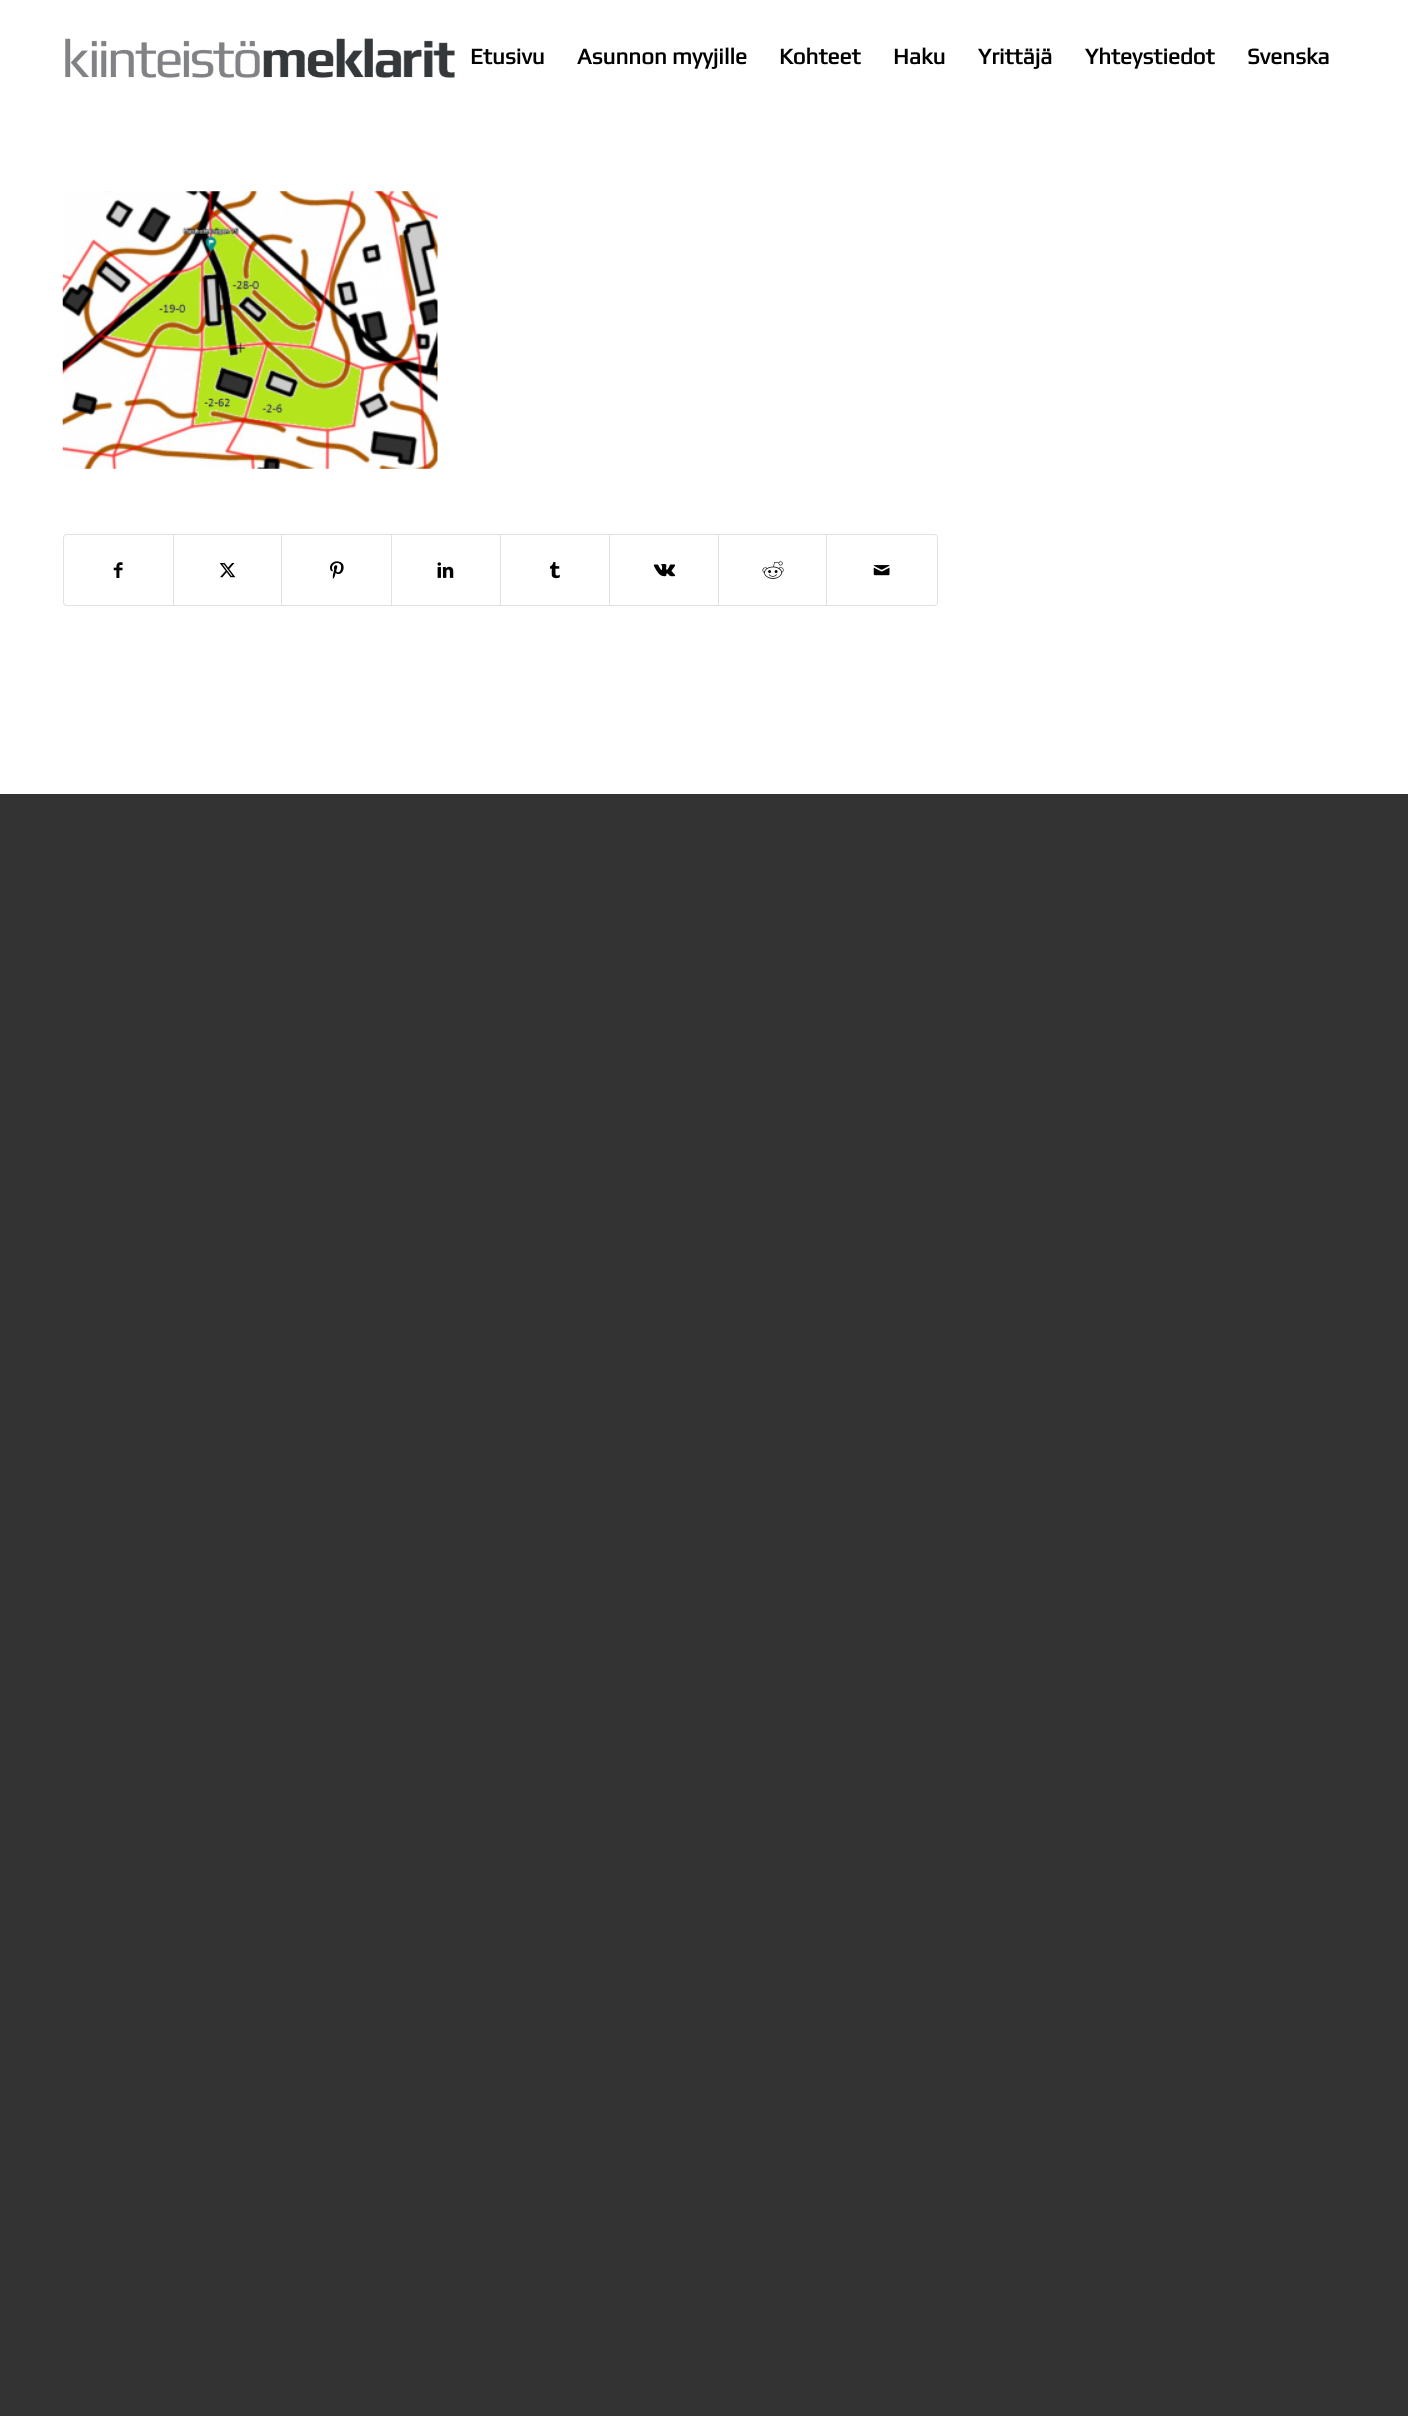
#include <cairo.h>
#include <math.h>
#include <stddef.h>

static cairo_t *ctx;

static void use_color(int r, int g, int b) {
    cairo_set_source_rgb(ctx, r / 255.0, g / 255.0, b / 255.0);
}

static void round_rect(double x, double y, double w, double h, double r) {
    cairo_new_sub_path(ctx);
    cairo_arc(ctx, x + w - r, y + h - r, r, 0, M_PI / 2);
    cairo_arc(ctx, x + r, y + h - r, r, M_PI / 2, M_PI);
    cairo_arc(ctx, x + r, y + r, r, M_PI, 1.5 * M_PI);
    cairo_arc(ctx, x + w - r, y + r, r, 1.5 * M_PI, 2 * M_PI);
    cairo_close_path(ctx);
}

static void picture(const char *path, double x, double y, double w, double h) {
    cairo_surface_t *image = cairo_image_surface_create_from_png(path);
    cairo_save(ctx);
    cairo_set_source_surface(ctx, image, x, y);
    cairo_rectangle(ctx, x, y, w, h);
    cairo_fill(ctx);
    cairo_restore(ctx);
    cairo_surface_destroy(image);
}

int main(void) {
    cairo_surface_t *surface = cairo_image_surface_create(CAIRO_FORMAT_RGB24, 1408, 2416);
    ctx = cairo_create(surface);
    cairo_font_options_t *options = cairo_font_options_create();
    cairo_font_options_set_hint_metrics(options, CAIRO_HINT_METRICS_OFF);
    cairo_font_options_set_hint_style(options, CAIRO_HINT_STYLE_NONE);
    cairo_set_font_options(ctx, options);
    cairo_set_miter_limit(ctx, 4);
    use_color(51, 51, 51);
    cairo_paint(ctx);
    use_color(255, 255, 255);
    cairo_rectangle(ctx, 0, 0, 1408, 794);
    cairo_fill(ctx);
    picture("img1.png", 65, 38, 390, 40);
    cairo_select_font_face(ctx, "Play", CAIRO_FONT_SLANT_NORMAL, CAIRO_FONT_WEIGHT_BOLD);
    cairo_set_font_size(ctx, 22.5);
    use_color(0, 0, 0);
    cairo_move_to(ctx, 470, 64);
    cairo_show_text(ctx, "Etusivu");
    cairo_move_to(ctx, 577, 64);
    cairo_show_text(ctx, "Asunnon myyjille");
    cairo_move_to(ctx, 779, 64);
    cairo_show_text(ctx, "Kohteet");
    cairo_move_to(ctx, 893, 64);
    cairo_show_text(ctx, "Haku");
    cairo_move_to(ctx, 978, 64);
    cairo_show_text(ctx, "Yrittäjä");
    cairo_move_to(ctx, 1085, 64);
    cairo_show_text(ctx, "Yhteystiedot");
    cairo_move_to(ctx, 1247, 64);
    cairo_show_text(ctx, "Svenska");
    picture("img2.png", 62, 191, 376, 278);
    round_rect(63.5, 534.5, 874, 71, 3.5);
    use_color(225, 225, 225);
    cairo_set_line_width(ctx, 1);
    cairo_stroke(ctx);
    picture("img3.png", 113, 562, 10, 16);
    cairo_rectangle(ctx, 173, 535, 1, 70);
    cairo_fill(ctx);
    picture("img4.png", 219, 563, 17, 15);
    cairo_rectangle(ctx, 281, 535, 1, 70);
    cairo_fill(ctx);
    picture("img5.png", 330, 561, 14, 18);
    cairo_rectangle(ctx, 391, 535, 1, 70);
    cairo_fill(ctx);
    picture("img6.png", 437, 562, 17, 16);
    cairo_rectangle(ctx, 500, 535, 1, 70);
    cairo_fill(ctx);
    picture("img7.png", 550, 562, 10, 17);
    cairo_rectangle(ctx, 609, 535, 1, 70);
    cairo_fill(ctx);
    picture("img8.png", 653, 564, 23, 13);
    cairo_rectangle(ctx, 718, 535, 1, 70);
    cairo_fill(ctx);
    picture("img9.png", 762, 561, 22, 18);
    cairo_rectangle(ctx, 826, 535, 1, 70);
    cairo_fill(ctx);
    picture("img10.png", 873, 565, 17, 11);
    cairo_surface_write_to_png(surface, "result.png");
    cairo_font_options_destroy(options);
    cairo_destroy(ctx);
    cairo_surface_destroy(surface);
    return 0;
}
